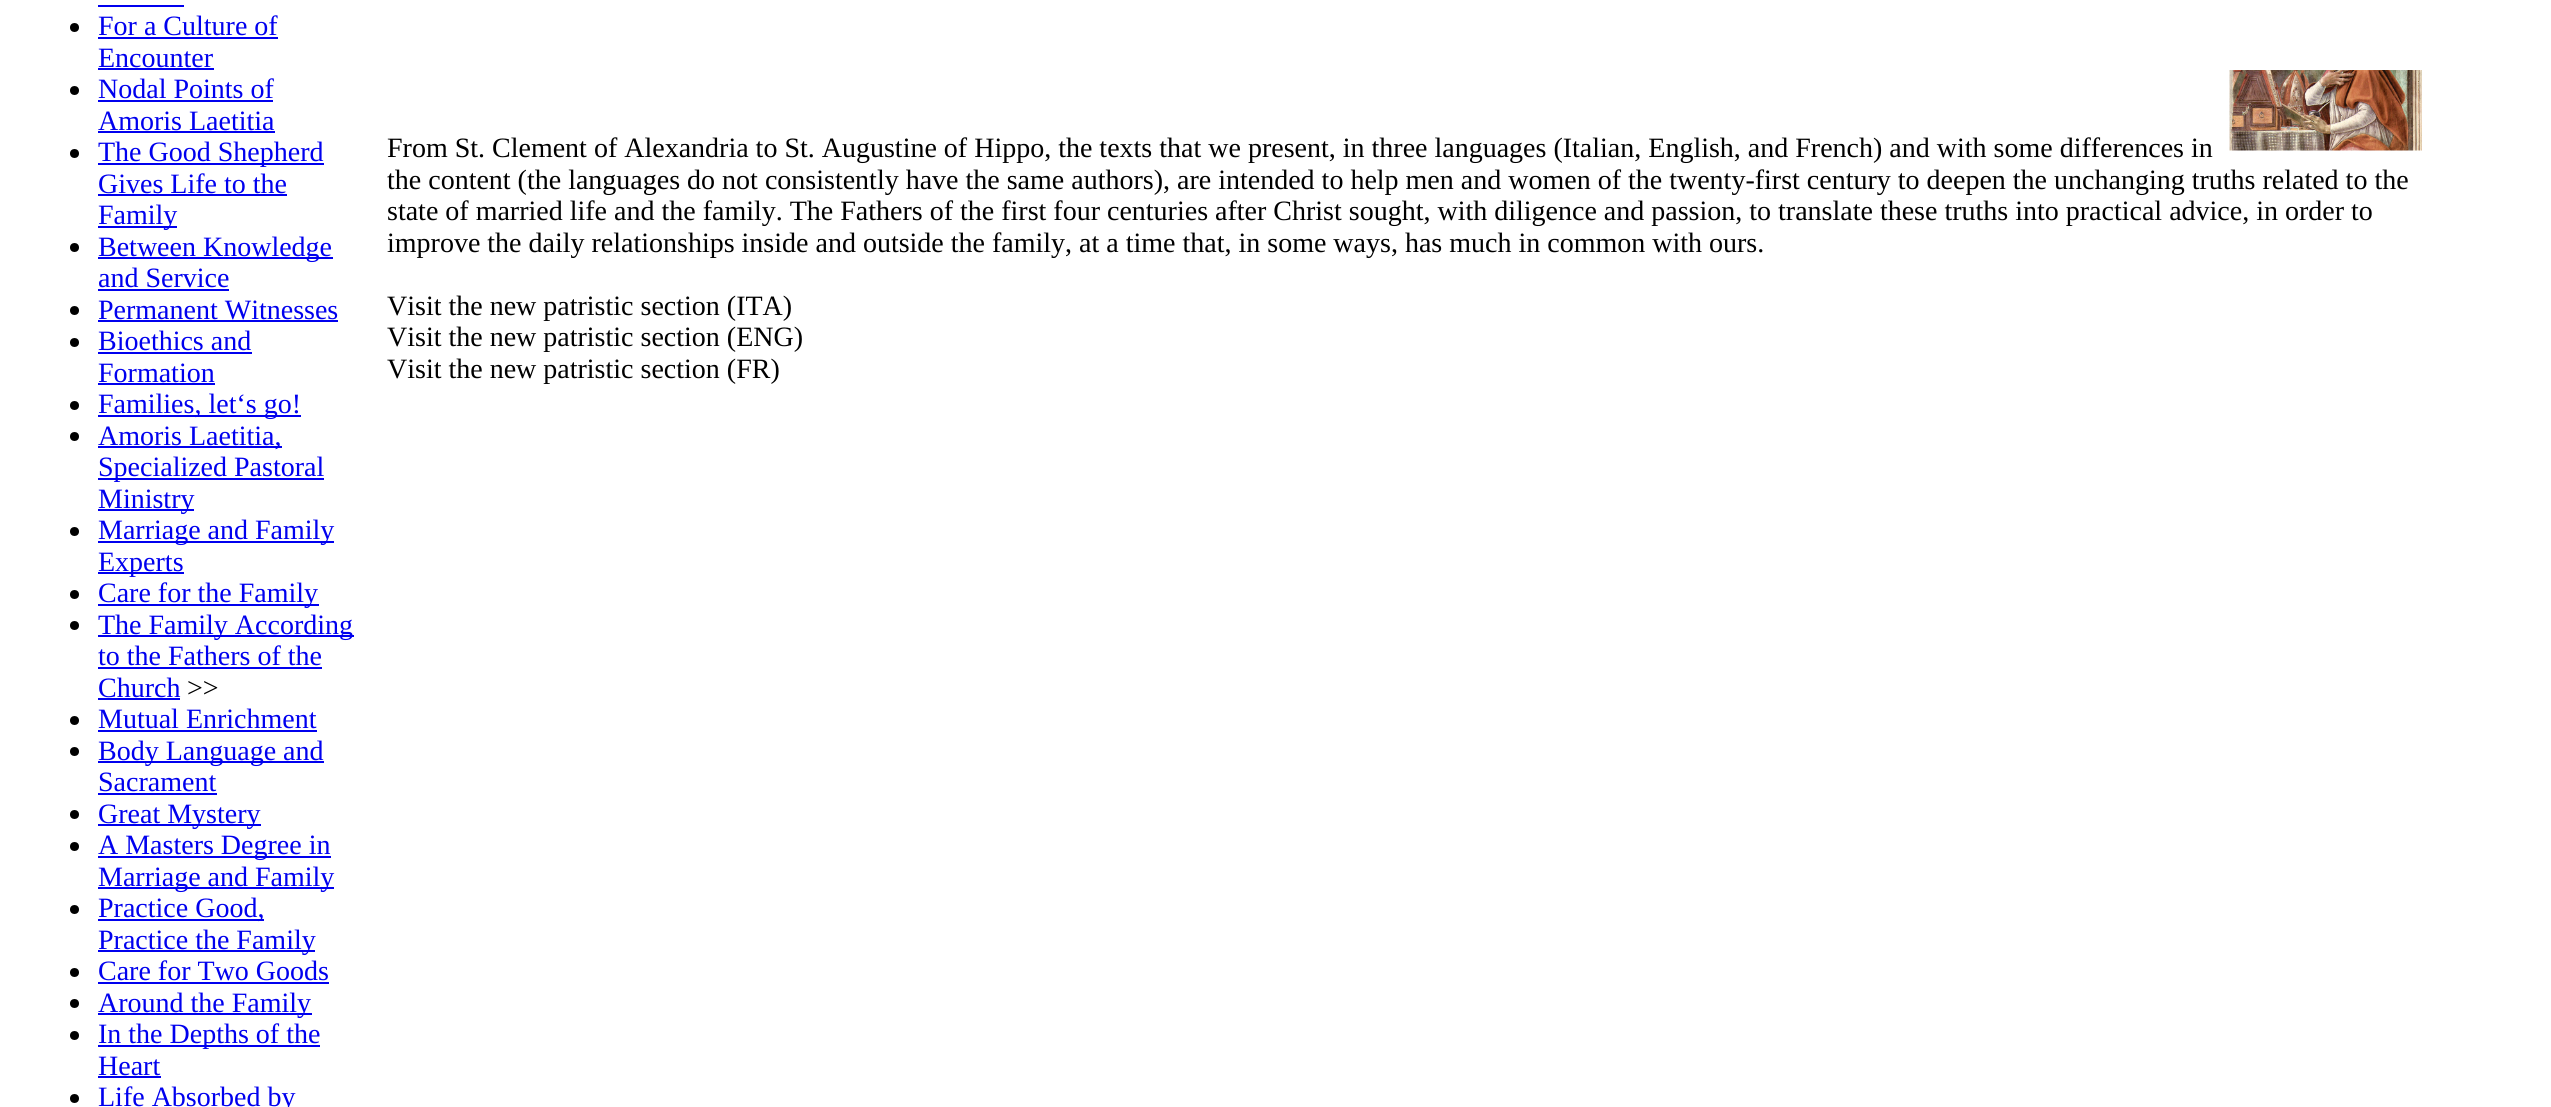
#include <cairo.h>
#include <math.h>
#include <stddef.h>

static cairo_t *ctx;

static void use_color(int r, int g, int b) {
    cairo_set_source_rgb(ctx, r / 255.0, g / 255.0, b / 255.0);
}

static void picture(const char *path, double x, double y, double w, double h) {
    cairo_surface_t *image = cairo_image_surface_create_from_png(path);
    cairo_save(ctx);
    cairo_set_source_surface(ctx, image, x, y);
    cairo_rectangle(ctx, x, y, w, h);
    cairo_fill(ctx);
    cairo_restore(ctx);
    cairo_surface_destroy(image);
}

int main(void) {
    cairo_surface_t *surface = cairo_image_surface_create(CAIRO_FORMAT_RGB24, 2551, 1107);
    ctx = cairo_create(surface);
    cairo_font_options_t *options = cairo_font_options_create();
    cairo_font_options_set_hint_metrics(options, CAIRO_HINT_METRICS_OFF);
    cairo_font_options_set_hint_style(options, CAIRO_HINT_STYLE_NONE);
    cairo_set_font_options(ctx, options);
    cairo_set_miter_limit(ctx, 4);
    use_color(255, 255, 255);
    cairo_paint(ctx);
    use_color(0, 0, 238);
    cairo_rectangle(ctx, 98, 5, 86, 2);
    cairo_fill(ctx);
    use_color(0, 0, 0);
    cairo_arc(ctx, 74.5, 27.5, 4.5, 0, 2 * M_PI);
    cairo_fill(ctx);
    cairo_select_font_face(ctx, "Liberation Serif", CAIRO_FONT_SLANT_NORMAL, CAIRO_FONT_WEIGHT_NORMAL);
    cairo_set_font_size(ctx, 28);
    use_color(0, 0, 238);
    cairo_move_to(ctx, 98, 35);
    cairo_show_text(ctx, "For a Culture of");
    cairo_rectangle(ctx, 98, 37, 180, 2);
    cairo_fill(ctx);
    cairo_move_to(ctx, 98, 67);
    cairo_show_text(ctx, "Encounter");
    cairo_rectangle(ctx, 98, 68, 116, 2);
    cairo_fill(ctx);
    use_color(0, 0, 0);
    cairo_arc(ctx, 74.5, 90.5, 4.5, 0, 2 * M_PI);
    cairo_fill(ctx);
    use_color(0, 0, 238);
    cairo_move_to(ctx, 98, 98);
    cairo_show_text(ctx, "Nodal Points of");
    cairo_rectangle(ctx, 98, 100, 175, 2);
    cairo_fill(ctx);
    cairo_move_to(ctx, 98, 130);
    cairo_show_text(ctx, "Amoris Laetitia");
    cairo_rectangle(ctx, 98, 131, 177, 2);
    cairo_fill(ctx);
    use_color(0, 0, 0);
    cairo_arc(ctx, 74.5, 153.5, 4.5, 0, 2 * M_PI);
    cairo_fill(ctx);
    use_color(0, 0, 238);
    cairo_rectangle(ctx, 98, 163, 226, 2);
    cairo_fill(ctx);
    cairo_move_to(ctx, 98, 161);
    cairo_show_text(ctx, "The Good Shepherd");
    cairo_move_to(ctx, 98, 193);
    cairo_show_text(ctx, "Gives Life to the");
    cairo_rectangle(ctx, 98, 194, 189, 2);
    cairo_fill(ctx);
    cairo_rectangle(ctx, 98, 226, 79, 2);
    cairo_fill(ctx);
    cairo_move_to(ctx, 98, 224);
    cairo_show_text(ctx, "Family");
    use_color(0, 0, 0);
    cairo_new_path(ctx);
    cairo_arc(ctx, 74.5, 247.5, 4.5, 0, 2 * M_PI);
    cairo_fill(ctx);
    use_color(0, 0, 238);
    cairo_rectangle(ctx, 98, 257, 235, 2);
    cairo_fill(ctx);
    cairo_move_to(ctx, 98, 256);
    cairo_show_text(ctx, "Between Knowledge");
    cairo_move_to(ctx, 98, 287);
    cairo_show_text(ctx, "and Service");
    cairo_rectangle(ctx, 98, 289, 131, 2);
    cairo_fill(ctx);
    use_color(0, 0, 0);
    cairo_arc(ctx, 74.5, 310.5, 4.5, 0, 2 * M_PI);
    cairo_fill(ctx);
    use_color(0, 0, 238);
    cairo_move_to(ctx, 98, 319);
    cairo_show_text(ctx, "Permanent Witnesses");
    cairo_rectangle(ctx, 98, 320, 240, 2);
    cairo_fill(ctx);
    use_color(0, 0, 0);
    cairo_arc(ctx, 74.5, 342.5, 4.5, 0, 2 * M_PI);
    cairo_fill(ctx);
    use_color(0, 0, 238);
    cairo_move_to(ctx, 98, 350);
    cairo_show_text(ctx, "Bioethics and");
    cairo_rectangle(ctx, 98, 352, 154, 2);
    cairo_fill(ctx);
    cairo_move_to(ctx, 98, 382);
    cairo_show_text(ctx, "Formation");
    cairo_rectangle(ctx, 98, 383, 117, 2);
    cairo_fill(ctx);
    use_color(0, 0, 0);
    cairo_arc(ctx, 74.5, 405.5, 4.5, 0, 2 * M_PI);
    cairo_fill(ctx);
    use_color(0, 0, 238);
    cairo_rectangle(ctx, 98, 415, 203, 2);
    cairo_fill(ctx);
    cairo_move_to(ctx, 98, 413);
    cairo_show_text(ctx, "Families, let‘s go!");
    use_color(0, 0, 0);
    cairo_new_path(ctx);
    cairo_arc(ctx, 74.5, 436.5, 4.5, 0, 2 * M_PI);
    cairo_fill(ctx);
    use_color(0, 0, 238);
    cairo_rectangle(ctx, 98, 446, 184, 2);
    cairo_fill(ctx);
    cairo_move_to(ctx, 98, 445);
    cairo_show_text(ctx, "Amoris Laetitia,");
    cairo_rectangle(ctx, 98, 478, 226, 2);
    cairo_fill(ctx);
    cairo_move_to(ctx, 98, 476);
    cairo_show_text(ctx, "Specialized Pastoral");
    cairo_rectangle(ctx, 98, 509, 96, 2);
    cairo_fill(ctx);
    cairo_move_to(ctx, 98, 508);
    cairo_show_text(ctx, "Ministry");
    use_color(0, 0, 0);
    cairo_new_path(ctx);
    cairo_arc(ctx, 74.5, 531.5, 4.5, 0, 2 * M_PI);
    cairo_fill(ctx);
    use_color(0, 0, 238);
    cairo_rectangle(ctx, 98, 541, 236, 2);
    cairo_fill(ctx);
    cairo_move_to(ctx, 98, 539);
    cairo_show_text(ctx, "Marriage and Family");
    cairo_rectangle(ctx, 98, 572, 86, 2);
    cairo_fill(ctx);
    cairo_move_to(ctx, 98, 571);
    cairo_show_text(ctx, "Experts");
    use_color(0, 0, 0);
    cairo_new_path(ctx);
    cairo_arc(ctx, 74.5, 594.5, 4.5, 0, 2 * M_PI);
    cairo_fill(ctx);
    use_color(0, 0, 238);
    cairo_rectangle(ctx, 98, 604, 221, 2);
    cairo_fill(ctx);
    cairo_move_to(ctx, 98, 602);
    cairo_show_text(ctx, "Care for the Family");
    use_color(0, 0, 0);
    cairo_new_path(ctx);
    cairo_arc(ctx, 74.5, 625.5, 4.5, 0, 2 * M_PI);
    cairo_fill(ctx);
    use_color(0, 0, 238);
    cairo_rectangle(ctx, 98, 635, 256, 2);
    cairo_fill(ctx);
    cairo_move_to(ctx, 98, 634);
    cairo_show_text(ctx, "The Family According");
    cairo_move_to(ctx, 98, 665);
    cairo_show_text(ctx, "to the Fathers of the");
    cairo_rectangle(ctx, 98, 667, 224, 2);
    cairo_fill(ctx);
    cairo_move_to(ctx, 98, 697);
    cairo_show_text(ctx, "Church");
    cairo_rectangle(ctx, 98, 698, 82, 2);
    cairo_fill(ctx);
    use_color(0, 0, 0);
    cairo_move_to(ctx, 187, 697);
    cairo_show_text(ctx, ">>");
    cairo_new_path(ctx);
    cairo_arc(ctx, 74.5, 720.5, 4.5, 0, 2 * M_PI);
    cairo_fill(ctx);
    use_color(0, 0, 238);
    cairo_move_to(ctx, 98, 728);
    cairo_show_text(ctx, "Mutual Enrichment");
    cairo_rectangle(ctx, 98, 730, 219, 2);
    cairo_fill(ctx);
    use_color(0, 0, 0);
    cairo_arc(ctx, 74.5, 751.5, 4.5, 0, 2 * M_PI);
    cairo_fill(ctx);
    use_color(0, 0, 238);
    cairo_rectangle(ctx, 98, 761, 226, 2);
    cairo_fill(ctx);
    cairo_move_to(ctx, 98, 760);
    cairo_show_text(ctx, "Body Language and");
    cairo_move_to(ctx, 98, 791);
    cairo_show_text(ctx, "Sacrament");
    cairo_rectangle(ctx, 98, 793, 119, 2);
    cairo_fill(ctx);
    use_color(0, 0, 0);
    cairo_arc(ctx, 74.5, 814.5, 4.5, 0, 2 * M_PI);
    cairo_fill(ctx);
    use_color(0, 0, 238);
    cairo_rectangle(ctx, 98, 824, 163, 2);
    cairo_fill(ctx);
    cairo_move_to(ctx, 98, 823);
    cairo_show_text(ctx, "Great Mystery");
    use_color(0, 0, 0);
    cairo_new_path(ctx);
    cairo_arc(ctx, 74.5, 846.5, 4.5, 0, 2 * M_PI);
    cairo_fill(ctx);
    use_color(0, 0, 238);
    cairo_rectangle(ctx, 98, 856, 233, 2);
    cairo_fill(ctx);
    cairo_move_to(ctx, 98, 854);
    cairo_show_text(ctx, "A Masters Degree in");
    cairo_rectangle(ctx, 98, 887, 236, 2);
    cairo_fill(ctx);
    cairo_move_to(ctx, 98, 886);
    cairo_show_text(ctx, "Marriage and Family");
    use_color(0, 0, 0);
    cairo_new_path(ctx);
    cairo_arc(ctx, 74.5, 909.5, 4.5, 0, 2 * M_PI);
    cairo_fill(ctx);
    use_color(0, 0, 238);
    cairo_rectangle(ctx, 98, 919, 166, 2);
    cairo_fill(ctx);
    cairo_move_to(ctx, 98, 917);
    cairo_show_text(ctx, "Practice Good,");
    cairo_rectangle(ctx, 98, 950, 217, 2);
    cairo_fill(ctx);
    cairo_move_to(ctx, 98, 949);
    cairo_show_text(ctx, "Practice the Family");
    use_color(0, 0, 0);
    cairo_new_path(ctx);
    cairo_arc(ctx, 74.5, 972.5, 4.5, 0, 2 * M_PI);
    cairo_fill(ctx);
    use_color(0, 0, 238);
    cairo_move_to(ctx, 98, 980);
    cairo_show_text(ctx, "Care for Two Goods");
    cairo_rectangle(ctx, 98, 982, 231, 2);
    cairo_fill(ctx);
    use_color(0, 0, 0);
    cairo_arc(ctx, 74.5, 1003.5, 4.5, 0, 2 * M_PI);
    cairo_fill(ctx);
    use_color(0, 0, 238);
    cairo_rectangle(ctx, 98, 1013, 214, 2);
    cairo_fill(ctx);
    cairo_move_to(ctx, 98, 1012);
    cairo_show_text(ctx, "Around the Family");
    use_color(0, 0, 0);
    cairo_new_path(ctx);
    cairo_arc(ctx, 74.5, 1035.5, 4.5, 0, 2 * M_PI);
    cairo_fill(ctx);
    use_color(0, 0, 238);
    cairo_rectangle(ctx, 98, 1045, 222, 2);
    cairo_fill(ctx);
    cairo_move_to(ctx, 98, 1043);
    cairo_show_text(ctx, "In the Depths of the");
    cairo_move_to(ctx, 98, 1075);
    cairo_show_text(ctx, "Heart");
    cairo_rectangle(ctx, 98, 1076, 63, 2);
    cairo_fill(ctx);
    use_color(0, 0, 0);
    cairo_arc(ctx, 74.5, 1098.5, 4.5, 0, 2 * M_PI);
    cairo_fill(ctx);
    use_color(0, 0, 238);
    cairo_move_to(ctx, 98, 1106);
    cairo_show_text(ctx, "Life Absorbed by");
    use_color(0, 0, 0);
    cairo_move_to(ctx, 387, 157);
    cairo_show_text(ctx, "From St. Clement of Alexandria to St. Augustine of Hippo, the texts that we present, in three languages (Italian, English, and French) and with some differences in");
    picture("img1.png", 2229, 70, 193, 81);
    cairo_move_to(ctx, 387, 189);
    cairo_show_text(ctx, "the content (the languages do not consistently have the same authors), are intended to help men and women of the twenty-first century to deepen the unchanging truths related to the");
    cairo_move_to(ctx, 387, 220);
    cairo_show_text(ctx, "state of married life and the family. The Fathers of the first four centuries after Christ sought, with diligence and passion, to translate these truths into practical advice, in order to");
    cairo_move_to(ctx, 387, 252);
    cairo_show_text(ctx, "improve the daily relationships inside and outside the family, at a time that, in some ways, has much in common with ours.");
    cairo_move_to(ctx, 387, 315);
    cairo_show_text(ctx, "Visit the new patristic section (ITA)");
    cairo_move_to(ctx, 387, 346);
    cairo_show_text(ctx, "Visit the new patristic section (ENG)");
    cairo_move_to(ctx, 387, 378);
    cairo_show_text(ctx, "Visit the new patristic section (FR)");
    cairo_surface_write_to_png(surface, "result.png");
    cairo_font_options_destroy(options);
    cairo_destroy(ctx);
    cairo_surface_destroy(surface);
    return 0;
}
